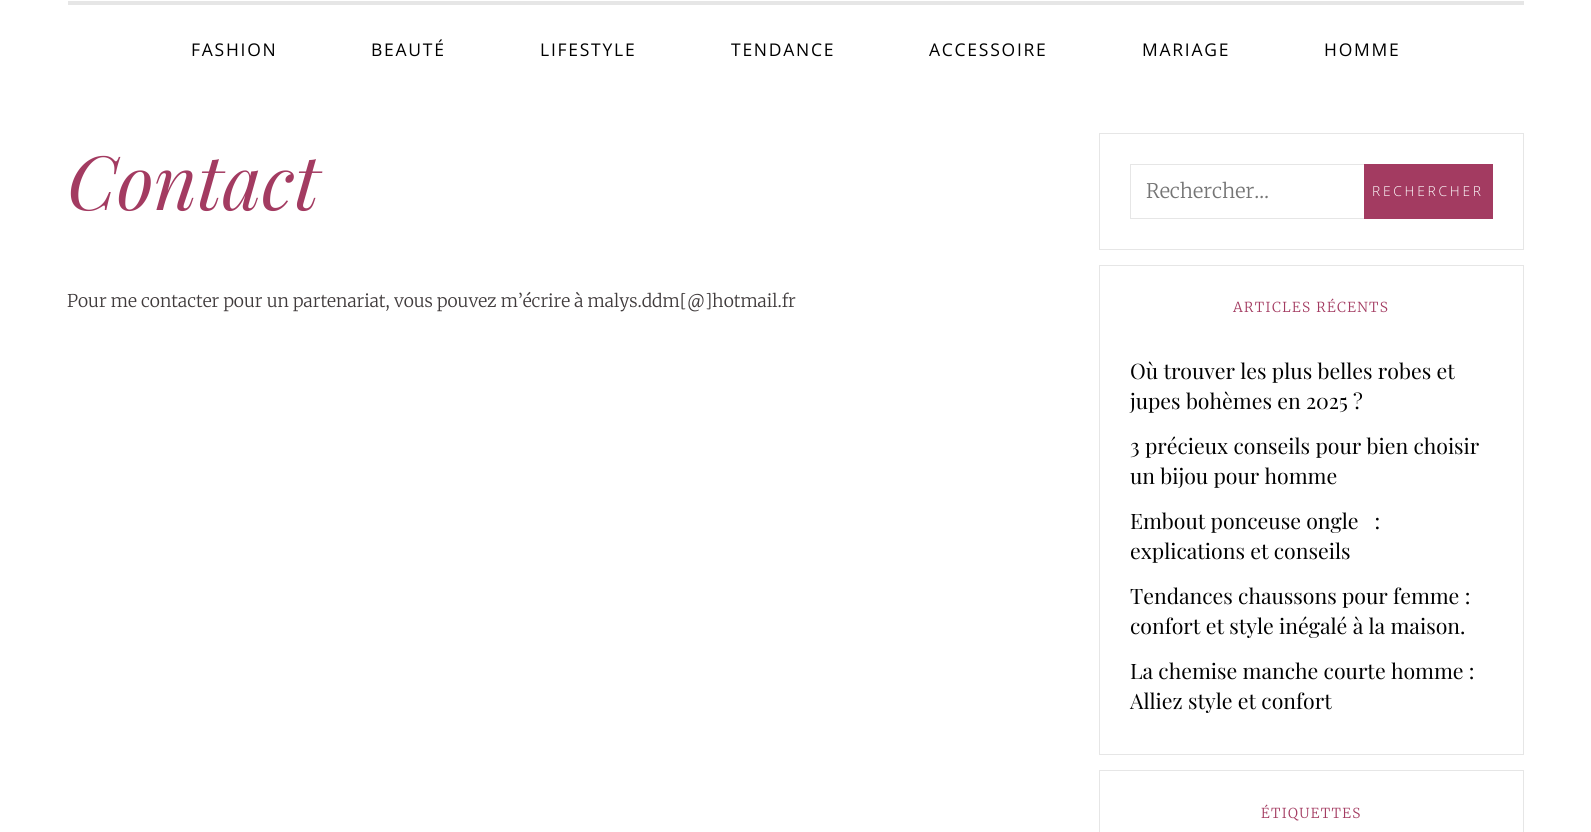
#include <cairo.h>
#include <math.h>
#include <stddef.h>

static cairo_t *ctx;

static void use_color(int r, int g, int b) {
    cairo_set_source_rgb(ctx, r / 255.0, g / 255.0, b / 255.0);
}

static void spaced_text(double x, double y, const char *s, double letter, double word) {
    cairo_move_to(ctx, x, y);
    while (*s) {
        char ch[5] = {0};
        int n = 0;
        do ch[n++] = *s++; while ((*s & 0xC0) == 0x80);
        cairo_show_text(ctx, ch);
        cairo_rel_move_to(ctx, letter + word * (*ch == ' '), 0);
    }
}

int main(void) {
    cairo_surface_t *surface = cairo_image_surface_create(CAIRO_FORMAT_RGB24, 1591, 832);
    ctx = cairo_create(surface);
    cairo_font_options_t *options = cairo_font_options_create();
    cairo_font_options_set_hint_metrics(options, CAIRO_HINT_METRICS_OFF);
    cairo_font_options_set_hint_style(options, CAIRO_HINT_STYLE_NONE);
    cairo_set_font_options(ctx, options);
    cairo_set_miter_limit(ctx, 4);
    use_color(255, 255, 255);
    cairo_paint(ctx);
    use_color(230, 230, 230);
    cairo_rectangle(ctx, 68, 1, 1456, 4);
    cairo_fill(ctx);
    cairo_select_font_face(ctx, "Open Sans", CAIRO_FONT_SLANT_NORMAL, CAIRO_FONT_WEIGHT_NORMAL);
    cairo_set_font_size(ctx, 17.5);
    use_color(0, 0, 0);
    spaced_text(191, 56, "FASHION", 1.75, 0);
    spaced_text(371, 56, "BEAUTÉ", 1.75, 0);
    spaced_text(540, 56, "LIFESTYLE", 1.75, 0);
    spaced_text(731, 56, "TENDANCE", 1.75, 0);
    spaced_text(929, 56, "ACCESSOIRE", 1.75, 0);
    spaced_text(1142, 56, "MARIAGE", 1.75, 0);
    spaced_text(1324, 56, "HOMME", 1.75, 0);
    cairo_select_font_face(ctx, "Playfair Display", CAIRO_FONT_SLANT_ITALIC, CAIRO_FONT_WEIGHT_NORMAL);
    cairo_set_font_size(ctx, 75);
    use_color(163, 59, 97);
    cairo_move_to(ctx, 67, 210);
    cairo_show_text(ctx, "Contact");
    cairo_select_font_face(ctx, "Merriweather Light", CAIRO_FONT_SLANT_NORMAL, CAIRO_FONT_WEIGHT_NORMAL);
    cairo_set_font_size(ctx, 17.5);
    use_color(64, 59, 60);
    cairo_move_to(ctx, 67, 307);
    cairo_show_text(ctx, "Pour me contacter pour un partenariat, vous pouvez m’écrire à malys.ddm[@]hotmail.fr");
    cairo_rectangle(ctx, 1099.5, 133.5, 424, 116);
    use_color(230, 230, 230);
    cairo_set_line_width(ctx, 1);
    cairo_stroke(ctx);
    cairo_rectangle(ctx, 1130.5, 164.5, 362, 54);
    cairo_stroke(ctx);
    cairo_set_font_size(ctx, 20);
    use_color(117, 117, 117);
    cairo_move_to(ctx, 1146, 198);
    cairo_show_text(ctx, "Rechercher…");
    use_color(163, 59, 97);
    cairo_rectangle(ctx, 1364, 164, 129, 55);
    cairo_fill(ctx);
    cairo_select_font_face(ctx, "Open Sans Light", CAIRO_FONT_SLANT_NORMAL, CAIRO_FONT_WEIGHT_NORMAL);
    cairo_set_font_size(ctx, 13.75);
    use_color(255, 255, 255);
    spaced_text(1372, 196, "RECHERCHER", 2.75, 0);
    cairo_rectangle(ctx, 1099.5, 265.5, 424, 489);
    use_color(230, 230, 230);
    cairo_stroke(ctx);
    cairo_select_font_face(ctx, "Merriweather Light", CAIRO_FONT_SLANT_NORMAL, CAIRO_FONT_WEIGHT_NORMAL);
    use_color(163, 59, 97);
    spaced_text(1233, 312, "ARTICLES RÉCENTS", 1.4, 0);
    cairo_select_font_face(ctx, "Playfair Display", CAIRO_FONT_SLANT_NORMAL, CAIRO_FONT_WEIGHT_NORMAL);
    cairo_set_font_size(ctx, 21.25);
    use_color(0, 0, 0);
    cairo_move_to(ctx, 1130, 379);
    cairo_show_text(ctx, "Où trouver les plus belles robes et");
    cairo_move_to(ctx, 1130, 409);
    cairo_show_text(ctx, "jupes bohèmes en 2025 ?");
    cairo_move_to(ctx, 1130, 454);
    cairo_show_text(ctx, "3 précieux conseils pour bien choisir");
    cairo_move_to(ctx, 1130, 484);
    cairo_show_text(ctx, "un bijou pour homme");
    cairo_move_to(ctx, 1130, 529);
    cairo_show_text(ctx, "Embout ponceuse ongle   :");
    cairo_move_to(ctx, 1130, 559);
    cairo_show_text(ctx, "explications et conseils");
    cairo_move_to(ctx, 1130, 604);
    cairo_show_text(ctx, "Tendances chaussons pour femme :");
    cairo_move_to(ctx, 1130, 634);
    cairo_show_text(ctx, "confort et style inégalé à la maison.");
    cairo_move_to(ctx, 1130, 679);
    cairo_show_text(ctx, "La chemise manche courte homme :");
    cairo_move_to(ctx, 1130, 709);
    cairo_show_text(ctx, "Alliez style et confort");
    cairo_rectangle(ctx, 1099.5, 770.5, 424, 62);
    use_color(230, 230, 230);
    cairo_stroke(ctx);
    cairo_select_font_face(ctx, "Merriweather Light", CAIRO_FONT_SLANT_NORMAL, CAIRO_FONT_WEIGHT_NORMAL);
    cairo_set_font_size(ctx, 13.75);
    use_color(163, 59, 97);
    spaced_text(1261, 818, "ÉTIQUETTES", 1.4, 0);
    cairo_surface_write_to_png(surface, "result.png");
    cairo_font_options_destroy(options);
    cairo_destroy(ctx);
    cairo_surface_destroy(surface);
    return 0;
}
